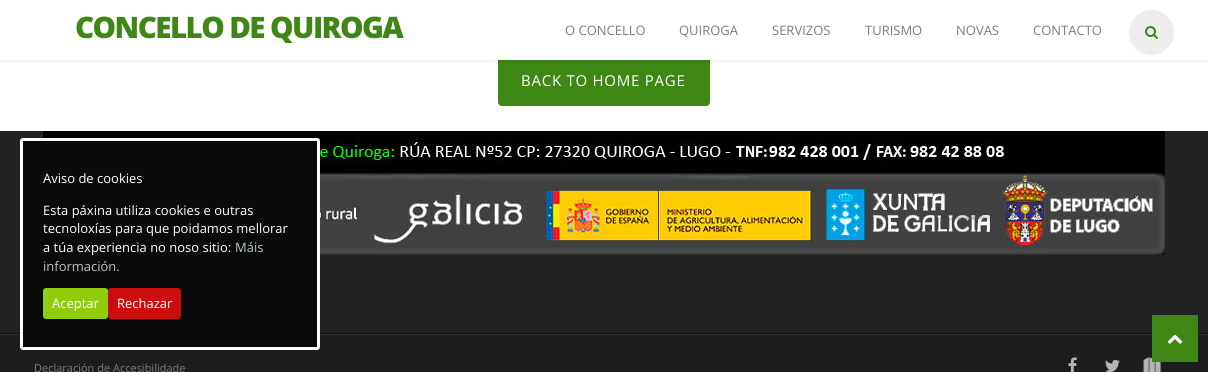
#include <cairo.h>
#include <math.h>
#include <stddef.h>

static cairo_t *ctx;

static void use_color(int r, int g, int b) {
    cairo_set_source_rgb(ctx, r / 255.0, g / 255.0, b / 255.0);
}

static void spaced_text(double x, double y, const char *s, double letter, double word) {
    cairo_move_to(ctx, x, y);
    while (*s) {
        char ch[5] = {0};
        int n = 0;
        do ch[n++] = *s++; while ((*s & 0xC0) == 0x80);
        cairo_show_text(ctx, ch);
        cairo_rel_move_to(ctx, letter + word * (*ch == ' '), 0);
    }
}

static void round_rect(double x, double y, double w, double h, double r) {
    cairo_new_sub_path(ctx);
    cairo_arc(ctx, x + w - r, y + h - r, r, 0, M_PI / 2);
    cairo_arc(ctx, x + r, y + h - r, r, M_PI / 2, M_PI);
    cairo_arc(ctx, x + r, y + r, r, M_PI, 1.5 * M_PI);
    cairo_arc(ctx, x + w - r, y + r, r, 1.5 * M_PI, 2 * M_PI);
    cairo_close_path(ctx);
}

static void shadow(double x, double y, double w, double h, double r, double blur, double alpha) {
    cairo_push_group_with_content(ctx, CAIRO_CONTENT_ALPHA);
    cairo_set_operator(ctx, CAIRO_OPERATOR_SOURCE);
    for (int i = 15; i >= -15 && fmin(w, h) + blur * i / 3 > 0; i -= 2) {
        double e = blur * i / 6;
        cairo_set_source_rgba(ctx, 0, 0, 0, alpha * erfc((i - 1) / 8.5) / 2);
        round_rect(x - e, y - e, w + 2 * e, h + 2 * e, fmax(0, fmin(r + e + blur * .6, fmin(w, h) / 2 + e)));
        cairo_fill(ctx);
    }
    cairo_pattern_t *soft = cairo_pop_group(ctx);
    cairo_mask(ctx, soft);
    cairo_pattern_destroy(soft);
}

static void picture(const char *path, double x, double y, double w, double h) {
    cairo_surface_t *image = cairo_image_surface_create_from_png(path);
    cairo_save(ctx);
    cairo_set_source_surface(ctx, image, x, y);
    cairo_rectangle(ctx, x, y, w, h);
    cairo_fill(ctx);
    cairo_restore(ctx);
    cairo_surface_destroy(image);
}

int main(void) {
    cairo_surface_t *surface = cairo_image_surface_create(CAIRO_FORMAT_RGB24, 1208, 372);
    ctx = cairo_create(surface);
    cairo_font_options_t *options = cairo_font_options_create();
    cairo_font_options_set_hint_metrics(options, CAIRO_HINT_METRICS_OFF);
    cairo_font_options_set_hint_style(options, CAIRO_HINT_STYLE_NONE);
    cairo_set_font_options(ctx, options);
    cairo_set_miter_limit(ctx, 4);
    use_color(255, 255, 255);
    cairo_paint(ctx);
    use_color(63, 135, 21);
    round_rect(498, 55, 212, 51, 4);
    cairo_fill(ctx);
    use_color(0, 0, 0);
    shadow(0, 1, 1208, 60, 0, 2, 0.1);
    use_color(255, 255, 255);
    cairo_rectangle(ctx, 0, 0, 1208, 60);
    cairo_fill(ctx);
    cairo_select_font_face(ctx, "Open Sans ExtraBold", CAIRO_FONT_SLANT_NORMAL, CAIRO_FONT_WEIGHT_NORMAL);
    cairo_set_font_size(ctx, 29.6);
    use_color(63, 135, 21);
    spaced_text(75, 38, "CONCELLO DE QUIROGA", -1.6, 0);
    cairo_select_font_face(ctx, "Open Sans", CAIRO_FONT_SLANT_NORMAL, CAIRO_FONT_WEIGHT_NORMAL);
    cairo_set_font_size(ctx, 13);
    use_color(124, 124, 124);
    cairo_move_to(ctx, 565, 35);
    cairo_show_text(ctx, "O CONCELLO");
    cairo_move_to(ctx, 679, 35);
    cairo_show_text(ctx, "QUIROGA");
    cairo_move_to(ctx, 772, 35);
    cairo_show_text(ctx, "SERVIZOS");
    cairo_move_to(ctx, 865, 35);
    cairo_show_text(ctx, "TURISMO");
    cairo_move_to(ctx, 956, 35);
    cairo_show_text(ctx, "NOVAS");
    cairo_move_to(ctx, 1033, 35);
    cairo_show_text(ctx, "CONTACTO");
    use_color(238, 238, 238);
    cairo_new_path(ctx);
    cairo_arc(ctx, 1151.5, 32.5, 22.5, 0, 2 * M_PI);
    cairo_fill(ctx);
    picture("img1.png", 1145, 26, 13, 13);
    cairo_set_font_size(ctx, 15);
    use_color(255, 255, 255);
    spaced_text(521, 86, "BACK TO HOME PAGE", 0.75, 0);
    use_color(34, 34, 34);
    cairo_rectangle(ctx, 0, 131, 1208, 202);
    cairo_fill(ctx);
    use_color(15, 15, 15);
    cairo_rectangle(ctx, 0, 333, 1208, 1);
    cairo_fill(ctx);
    use_color(29, 29, 29);
    cairo_rectangle(ctx, 0, 335, 1208, 37);
    cairo_fill(ctx);
    use_color(54, 54, 54);
    cairo_rectangle(ctx, 0, 334, 1208, 1);
    cairo_fill(ctx);
    picture("img6.png", 1143, 357, 18, 15);
    use_color(63, 135, 21);
    cairo_rectangle(ctx, 1152, 315, 46, 47);
    cairo_fill(ctx);
    picture("img2.png", 1167, 334, 16, 10);
    picture("img3.png", 43, 131, 1122, 124);
    cairo_set_font_size(ctx, 11);
    use_color(124, 124, 124);
    cairo_move_to(ctx, 34, 372);
    cairo_show_text(ctx, "Declaración de Accesibilidade");
    picture("img4.png", 1068, 357, 9, 15);
    picture("img5.png", 1105, 359, 15, 13);
    use_color(10, 10, 10);
    round_rect(21.5, 139.5, 297, 209, 1.5);
    cairo_fill_preserve(ctx);
    use_color(255, 255, 255);
    cairo_set_line_width(ctx, 3);
    cairo_stroke(ctx);
    cairo_set_font_size(ctx, 13);
    cairo_move_to(ctx, 43, 183);
    cairo_show_text(ctx, "Aviso de cookies");
    cairo_move_to(ctx, 43, 215);
    cairo_show_text(ctx, "Esta páxina utiliza cookies e outras");
    cairo_move_to(ctx, 43, 233);
    cairo_show_text(ctx, "tecnoloxías para que poidamos mellorar");
    cairo_move_to(ctx, 43, 252);
    cairo_show_text(ctx, "a túa experiencia no noso sitio:");
    use_color(184, 195, 198);
    cairo_move_to(ctx, 235, 252);
    cairo_show_text(ctx, "Máis");
    cairo_move_to(ctx, 43, 271);
    cairo_show_text(ctx, "información.");
    use_color(144, 205, 13);
    round_rect(43, 288, 65, 31, 3);
    cairo_fill(ctx);
    use_color(255, 255, 255);
    cairo_move_to(ctx, 52, 308);
    cairo_show_text(ctx, "Aceptar");
    use_color(205, 13, 13);
    round_rect(108, 288, 73, 31, 3);
    cairo_fill(ctx);
    use_color(255, 255, 255);
    cairo_move_to(ctx, 117, 308);
    cairo_show_text(ctx, "Rechazar");
    cairo_surface_write_to_png(surface, "result.png");
    cairo_font_options_destroy(options);
    cairo_destroy(ctx);
    cairo_surface_destroy(surface);
    return 0;
}
